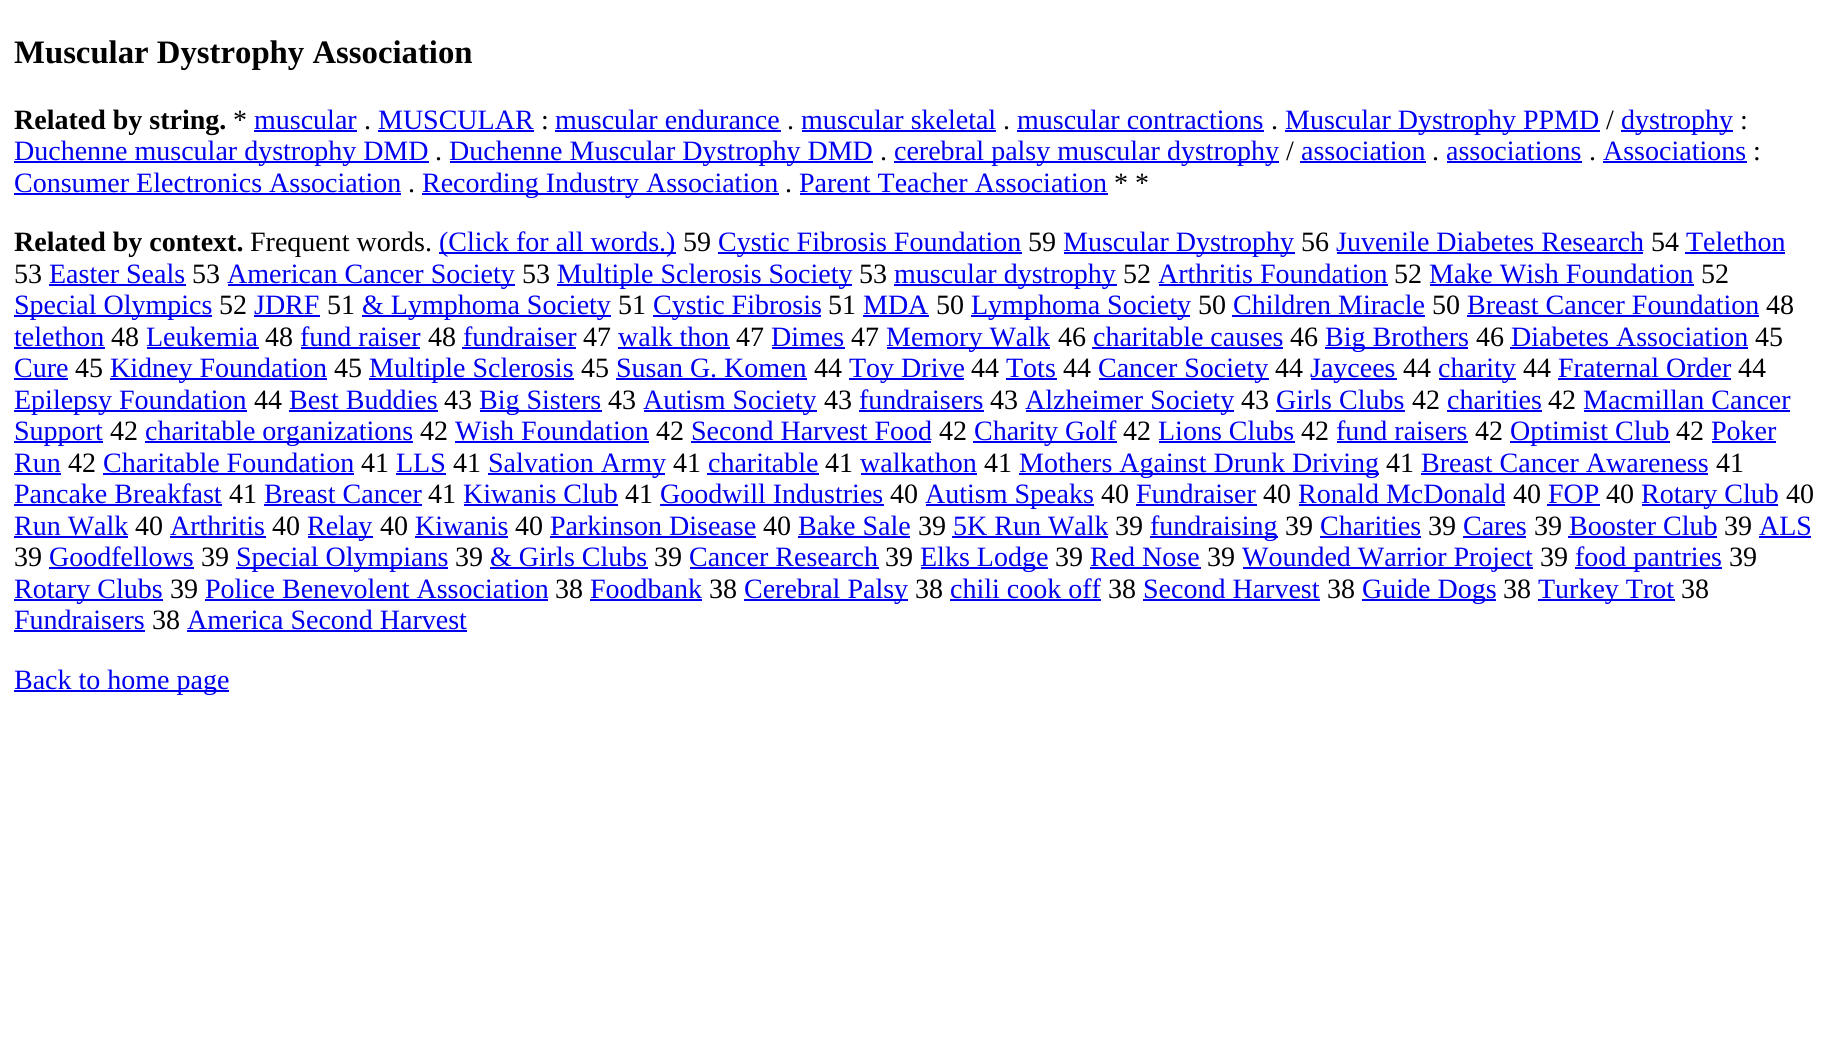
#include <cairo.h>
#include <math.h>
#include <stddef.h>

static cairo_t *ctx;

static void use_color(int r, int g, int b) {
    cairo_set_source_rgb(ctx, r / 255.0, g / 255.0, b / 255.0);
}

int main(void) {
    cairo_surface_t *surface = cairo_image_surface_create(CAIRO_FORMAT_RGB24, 1830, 1050);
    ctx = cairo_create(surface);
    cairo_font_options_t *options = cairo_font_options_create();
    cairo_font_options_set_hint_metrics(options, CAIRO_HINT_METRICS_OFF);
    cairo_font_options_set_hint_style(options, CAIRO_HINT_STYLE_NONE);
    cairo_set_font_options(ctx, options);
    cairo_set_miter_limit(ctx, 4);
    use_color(255, 255, 255);
    cairo_paint(ctx);
    cairo_select_font_face(ctx, "Liberation Serif", CAIRO_FONT_SLANT_NORMAL, CAIRO_FONT_WEIGHT_BOLD);
    cairo_set_font_size(ctx, 32.75);
    use_color(0, 0, 0);
    cairo_move_to(ctx, 14, 63);
    cairo_show_text(ctx, "Muscular Dystrophy Association");
    cairo_set_font_size(ctx, 28);
    cairo_move_to(ctx, 14, 129);
    cairo_show_text(ctx, "Related by string.");
    cairo_select_font_face(ctx, "Liberation Serif", CAIRO_FONT_SLANT_NORMAL, CAIRO_FONT_WEIGHT_NORMAL);
    cairo_move_to(ctx, 233, 129);
    cairo_show_text(ctx, "*");
    use_color(0, 0, 238);
    cairo_move_to(ctx, 254, 129);
    cairo_show_text(ctx, "muscular");
    cairo_rectangle(ctx, 254, 130, 103, 2);
    cairo_fill(ctx);
    use_color(0, 0, 0);
    cairo_move_to(ctx, 364, 129);
    cairo_show_text(ctx, ".");
    use_color(0, 0, 238);
    cairo_move_to(ctx, 378, 129);
    cairo_show_text(ctx, "MUSCULAR");
    cairo_rectangle(ctx, 378, 130, 156, 2);
    cairo_fill(ctx);
    use_color(0, 0, 0);
    cairo_move_to(ctx, 541, 129);
    cairo_show_text(ctx, ":");
    use_color(0, 0, 238);
    cairo_move_to(ctx, 555, 129);
    cairo_show_text(ctx, "muscular endurance");
    cairo_rectangle(ctx, 555, 130, 226, 2);
    cairo_fill(ctx);
    use_color(0, 0, 0);
    cairo_move_to(ctx, 787, 129);
    cairo_show_text(ctx, ".");
    use_color(0, 0, 238);
    cairo_move_to(ctx, 801, 129);
    cairo_show_text(ctx, "muscular skeletal");
    cairo_rectangle(ctx, 802, 130, 194, 2);
    cairo_fill(ctx);
    use_color(0, 0, 0);
    cairo_move_to(ctx, 1003, 129);
    cairo_show_text(ctx, ".");
    use_color(0, 0, 238);
    cairo_move_to(ctx, 1017, 129);
    cairo_show_text(ctx, "muscular contractions");
    cairo_rectangle(ctx, 1017, 130, 247, 2);
    cairo_fill(ctx);
    use_color(0, 0, 0);
    cairo_move_to(ctx, 1271, 129);
    cairo_show_text(ctx, ".");
    use_color(0, 0, 238);
    cairo_rectangle(ctx, 1285, 130, 315, 2);
    cairo_fill(ctx);
    cairo_move_to(ctx, 1285, 129);
    cairo_show_text(ctx, "Muscular Dystrophy PPMD");
    use_color(0, 0, 0);
    cairo_move_to(ctx, 1606, 129);
    cairo_show_text(ctx, "/");
    use_color(0, 0, 238);
    cairo_rectangle(ctx, 1621, 130, 112, 2);
    cairo_fill(ctx);
    cairo_move_to(ctx, 1621, 129);
    cairo_show_text(ctx, "dystrophy");
    use_color(0, 0, 0);
    cairo_move_to(ctx, 1740, 129);
    cairo_show_text(ctx, ":");
    use_color(0, 0, 238);
    cairo_rectangle(ctx, 14, 161, 415, 2);
    cairo_fill(ctx);
    cairo_move_to(ctx, 14, 160);
    cairo_show_text(ctx, "Duchenne muscular dystrophy DMD");
    use_color(0, 0, 0);
    cairo_move_to(ctx, 435, 160);
    cairo_show_text(ctx, ".");
    use_color(0, 0, 238);
    cairo_rectangle(ctx, 450, 161, 423, 2);
    cairo_fill(ctx);
    cairo_move_to(ctx, 449, 160);
    cairo_show_text(ctx, "Duchenne Muscular Dystrophy DMD");
    use_color(0, 0, 0);
    cairo_move_to(ctx, 880, 160);
    cairo_show_text(ctx, ".");
    use_color(0, 0, 238);
    cairo_rectangle(ctx, 894, 161, 385, 2);
    cairo_fill(ctx);
    cairo_move_to(ctx, 894, 160);
    cairo_show_text(ctx, "cerebral palsy muscular dystrophy");
    use_color(0, 0, 0);
    cairo_move_to(ctx, 1286, 160);
    cairo_show_text(ctx, "/");
    use_color(0, 0, 238);
    cairo_move_to(ctx, 1301, 160);
    cairo_show_text(ctx, "association");
    cairo_rectangle(ctx, 1300, 161, 126, 2);
    cairo_fill(ctx);
    use_color(0, 0, 0);
    cairo_move_to(ctx, 1432, 160);
    cairo_show_text(ctx, ".");
    use_color(0, 0, 238);
    cairo_move_to(ctx, 1446, 160);
    cairo_show_text(ctx, "associations");
    cairo_rectangle(ctx, 1447, 161, 135, 2);
    cairo_fill(ctx);
    use_color(0, 0, 0);
    cairo_move_to(ctx, 1589, 160);
    cairo_show_text(ctx, ".");
    use_color(0, 0, 238);
    cairo_move_to(ctx, 1603, 160);
    cairo_show_text(ctx, "Associations");
    cairo_rectangle(ctx, 1603, 161, 144, 2);
    cairo_fill(ctx);
    use_color(0, 0, 0);
    cairo_move_to(ctx, 1753, 160);
    cairo_show_text(ctx, ":");
    use_color(0, 0, 238);
    cairo_move_to(ctx, 14, 192);
    cairo_show_text(ctx, "Consumer Electronics Association");
    cairo_rectangle(ctx, 14, 193, 387, 2);
    cairo_fill(ctx);
    cairo_rectangle(ctx, 422, 193, 357, 2);
    cairo_fill(ctx);
    cairo_move_to(ctx, 422, 192);
    cairo_show_text(ctx, "Recording Industry Association");
    cairo_move_to(ctx, 799, 192);
    cairo_show_text(ctx, "Parent Teacher Association");
    cairo_rectangle(ctx, 800, 193, 308, 2);
    cairo_fill(ctx);
    use_color(0, 0, 0);
    cairo_move_to(ctx, 1114, 192);
    cairo_show_text(ctx, "* *");
    cairo_move_to(ctx, 408, 192);
    cairo_show_text(ctx, ".");
    cairo_move_to(ctx, 785, 192);
    cairo_show_text(ctx, ".");
    cairo_select_font_face(ctx, "Liberation Serif", CAIRO_FONT_SLANT_NORMAL, CAIRO_FONT_WEIGHT_BOLD);
    cairo_move_to(ctx, 14, 251);
    cairo_show_text(ctx, "Related by context.");
    cairo_select_font_face(ctx, "Liberation Serif", CAIRO_FONT_SLANT_NORMAL, CAIRO_FONT_WEIGHT_NORMAL);
    cairo_move_to(ctx, 250, 251);
    cairo_show_text(ctx, "Frequent words.");
    use_color(0, 0, 238);
    cairo_rectangle(ctx, 439, 252, 237, 2);
    cairo_fill(ctx);
    cairo_move_to(ctx, 439, 251);
    cairo_show_text(ctx, "(Click for all words.)");
    use_color(0, 0, 0);
    cairo_move_to(ctx, 683, 251);
    cairo_show_text(ctx, "59");
    use_color(0, 0, 238);
    cairo_rectangle(ctx, 718, 252, 304, 2);
    cairo_fill(ctx);
    cairo_move_to(ctx, 718, 251);
    cairo_show_text(ctx, "Cystic Fibrosis Foundation");
    use_color(0, 0, 0);
    cairo_move_to(ctx, 1028, 251);
    cairo_show_text(ctx, "59");
    use_color(0, 0, 238);
    cairo_rectangle(ctx, 1064, 252, 231, 2);
    cairo_fill(ctx);
    cairo_move_to(ctx, 1063, 251);
    cairo_show_text(ctx, "Muscular Dystrophy");
    use_color(0, 0, 0);
    cairo_move_to(ctx, 1301, 251);
    cairo_show_text(ctx, "56");
    use_color(0, 0, 238);
    cairo_move_to(ctx, 1336, 251);
    cairo_show_text(ctx, "Juvenile Diabetes Research");
    cairo_rectangle(ctx, 1337, 252, 306, 2);
    cairo_fill(ctx);
    use_color(0, 0, 0);
    cairo_move_to(ctx, 1651, 251);
    cairo_show_text(ctx, "54");
    use_color(0, 0, 238);
    cairo_move_to(ctx, 1686, 251);
    cairo_show_text(ctx, "Telethon");
    cairo_rectangle(ctx, 1685, 252, 100, 2);
    cairo_fill(ctx);
    use_color(0, 0, 0);
    cairo_move_to(ctx, 14, 283);
    cairo_show_text(ctx, "53");
    use_color(0, 0, 238);
    cairo_move_to(ctx, 49, 283);
    cairo_show_text(ctx, "Easter Seals");
    cairo_rectangle(ctx, 49, 284, 137, 2);
    cairo_fill(ctx);
    use_color(0, 0, 0);
    cairo_move_to(ctx, 192, 283);
    cairo_show_text(ctx, "53");
    use_color(0, 0, 238);
    cairo_rectangle(ctx, 228, 284, 287, 2);
    cairo_fill(ctx);
    cairo_move_to(ctx, 227, 283);
    cairo_show_text(ctx, "American Cancer Society");
    use_color(0, 0, 0);
    cairo_move_to(ctx, 522, 283);
    cairo_show_text(ctx, "53");
    use_color(0, 0, 238);
    cairo_rectangle(ctx, 557, 284, 295, 2);
    cairo_fill(ctx);
    cairo_move_to(ctx, 557, 283);
    cairo_show_text(ctx, "Multiple Sclerosis Society");
    use_color(0, 0, 0);
    cairo_move_to(ctx, 859, 283);
    cairo_show_text(ctx, "53");
    use_color(0, 0, 238);
    cairo_rectangle(ctx, 894, 284, 223, 2);
    cairo_fill(ctx);
    cairo_move_to(ctx, 894, 283);
    cairo_show_text(ctx, "muscular dystrophy");
    use_color(0, 0, 0);
    cairo_move_to(ctx, 1123, 283);
    cairo_show_text(ctx, "52");
    use_color(0, 0, 238);
    cairo_move_to(ctx, 1158, 283);
    cairo_show_text(ctx, "Arthritis Foundation");
    cairo_rectangle(ctx, 1159, 284, 229, 2);
    cairo_fill(ctx);
    use_color(0, 0, 0);
    cairo_move_to(ctx, 1394, 283);
    cairo_show_text(ctx, "52");
    use_color(0, 0, 238);
    cairo_move_to(ctx, 1429, 283);
    cairo_show_text(ctx, "Make Wish Foundation");
    cairo_rectangle(ctx, 1430, 284, 264, 2);
    cairo_fill(ctx);
    use_color(0, 0, 0);
    cairo_move_to(ctx, 1701, 283);
    cairo_show_text(ctx, "52");
    use_color(0, 0, 238);
    cairo_rectangle(ctx, 14, 315, 198, 2);
    cairo_fill(ctx);
    cairo_move_to(ctx, 14, 314);
    cairo_show_text(ctx, "Special Olympics");
    use_color(0, 0, 0);
    cairo_move_to(ctx, 219, 314);
    cairo_show_text(ctx, "52");
    use_color(0, 0, 238);
    cairo_move_to(ctx, 254, 314);
    cairo_show_text(ctx, "JDRF");
    cairo_rectangle(ctx, 254, 315, 66, 2);
    cairo_fill(ctx);
    use_color(0, 0, 0);
    cairo_move_to(ctx, 327, 314);
    cairo_show_text(ctx, "51");
    use_color(0, 0, 238);
    cairo_rectangle(ctx, 362, 315, 249, 2);
    cairo_fill(ctx);
    cairo_move_to(ctx, 362, 314);
    cairo_show_text(ctx, "& Lymphoma Society");
    use_color(0, 0, 0);
    cairo_move_to(ctx, 618, 314);
    cairo_show_text(ctx, "51");
    use_color(0, 0, 238);
    cairo_rectangle(ctx, 653, 315, 168, 2);
    cairo_fill(ctx);
    cairo_move_to(ctx, 653, 314);
    cairo_show_text(ctx, "Cystic Fibrosis");
    use_color(0, 0, 0);
    cairo_move_to(ctx, 828, 314);
    cairo_show_text(ctx, "51");
    use_color(0, 0, 238);
    cairo_move_to(ctx, 863, 314);
    cairo_show_text(ctx, "MDA");
    cairo_rectangle(ctx, 863, 315, 66, 2);
    cairo_fill(ctx);
    use_color(0, 0, 0);
    cairo_move_to(ctx, 936, 314);
    cairo_show_text(ctx, "50");
    use_color(0, 0, 238);
    cairo_rectangle(ctx, 971, 315, 219, 2);
    cairo_fill(ctx);
    cairo_move_to(ctx, 971, 314);
    cairo_show_text(ctx, "Lymphoma Society");
    use_color(0, 0, 0);
    cairo_move_to(ctx, 1198, 314);
    cairo_show_text(ctx, "50");
    use_color(0, 0, 238);
    cairo_move_to(ctx, 1233, 314);
    cairo_show_text(ctx, "Children Miracle");
    cairo_rectangle(ctx, 1232, 315, 193, 2);
    cairo_fill(ctx);
    use_color(0, 0, 0);
    cairo_move_to(ctx, 1432, 314);
    cairo_show_text(ctx, "50");
    use_color(0, 0, 238);
    cairo_move_to(ctx, 1467, 314);
    cairo_show_text(ctx, "Breast Cancer Foundation");
    cairo_rectangle(ctx, 1467, 315, 292, 2);
    cairo_fill(ctx);
    use_color(0, 0, 0);
    cairo_move_to(ctx, 1766, 314);
    cairo_show_text(ctx, "48");
    use_color(0, 0, 238);
    cairo_move_to(ctx, 14, 346);
    cairo_show_text(ctx, "telethon");
    cairo_rectangle(ctx, 14, 347, 91, 2);
    cairo_fill(ctx);
    use_color(0, 0, 0);
    cairo_move_to(ctx, 111, 346);
    cairo_show_text(ctx, "48");
    use_color(0, 0, 238);
    cairo_move_to(ctx, 146, 346);
    cairo_show_text(ctx, "Leukemia");
    cairo_rectangle(ctx, 147, 347, 112, 2);
    cairo_fill(ctx);
    use_color(0, 0, 0);
    cairo_move_to(ctx, 265, 346);
    cairo_show_text(ctx, "48");
    use_color(0, 0, 238);
    cairo_move_to(ctx, 300, 346);
    cairo_show_text(ctx, "fund raiser");
    cairo_rectangle(ctx, 301, 347, 119, 2);
    cairo_fill(ctx);
    use_color(0, 0, 0);
    cairo_move_to(ctx, 428, 346);
    cairo_show_text(ctx, "48");
    use_color(0, 0, 238);
    cairo_move_to(ctx, 463, 346);
    cairo_show_text(ctx, "fundraiser");
    cairo_rectangle(ctx, 462, 347, 114, 2);
    cairo_fill(ctx);
    use_color(0, 0, 0);
    cairo_move_to(ctx, 583, 346);
    cairo_show_text(ctx, "47");
    use_color(0, 0, 238);
    cairo_move_to(ctx, 618, 346);
    cairo_show_text(ctx, "walk thon");
    cairo_rectangle(ctx, 618, 347, 112, 2);
    cairo_fill(ctx);
    use_color(0, 0, 0);
    cairo_move_to(ctx, 736, 346);
    cairo_show_text(ctx, "47");
    use_color(0, 0, 238);
    cairo_move_to(ctx, 771, 346);
    cairo_show_text(ctx, "Dimes");
    cairo_rectangle(ctx, 772, 347, 73, 2);
    cairo_fill(ctx);
    use_color(0, 0, 0);
    cairo_move_to(ctx, 851, 346);
    cairo_show_text(ctx, "47");
    use_color(0, 0, 238);
    cairo_rectangle(ctx, 887, 347, 163, 2);
    cairo_fill(ctx);
    cairo_move_to(ctx, 886, 346);
    cairo_show_text(ctx, "Memory Walk");
    use_color(0, 0, 0);
    cairo_move_to(ctx, 1058, 346);
    cairo_show_text(ctx, "46");
    use_color(0, 0, 238);
    cairo_move_to(ctx, 1093, 346);
    cairo_show_text(ctx, "charitable causes");
    cairo_rectangle(ctx, 1092, 347, 191, 2);
    cairo_fill(ctx);
    use_color(0, 0, 0);
    cairo_move_to(ctx, 1290, 346);
    cairo_show_text(ctx, "46");
    use_color(0, 0, 238);
    cairo_rectangle(ctx, 1325, 347, 143, 2);
    cairo_fill(ctx);
    cairo_move_to(ctx, 1325, 346);
    cairo_show_text(ctx, "Big Brothers");
    use_color(0, 0, 0);
    cairo_move_to(ctx, 1476, 346);
    cairo_show_text(ctx, "46");
    use_color(0, 0, 238);
    cairo_move_to(ctx, 1511, 346);
    cairo_show_text(ctx, "Diabetes Association");
    cairo_rectangle(ctx, 1510, 347, 238, 2);
    cairo_fill(ctx);
    use_color(0, 0, 0);
    cairo_move_to(ctx, 1755, 346);
    cairo_show_text(ctx, "45");
    use_color(0, 0, 238);
    cairo_move_to(ctx, 14, 377);
    cairo_show_text(ctx, "Cure");
    cairo_rectangle(ctx, 14, 378, 54, 2);
    cairo_fill(ctx);
    use_color(0, 0, 0);
    cairo_move_to(ctx, 75, 377);
    cairo_show_text(ctx, "45");
    use_color(0, 0, 238);
    cairo_rectangle(ctx, 110, 378, 217, 2);
    cairo_fill(ctx);
    cairo_move_to(ctx, 110, 377);
    cairo_show_text(ctx, "Kidney Foundation");
    use_color(0, 0, 0);
    cairo_move_to(ctx, 334, 377);
    cairo_show_text(ctx, "45");
    use_color(0, 0, 238);
    cairo_rectangle(ctx, 369, 378, 205, 2);
    cairo_fill(ctx);
    cairo_move_to(ctx, 369, 377);
    cairo_show_text(ctx, "Multiple Sclerosis");
    use_color(0, 0, 0);
    cairo_move_to(ctx, 581, 377);
    cairo_show_text(ctx, "45");
    use_color(0, 0, 238);
    cairo_move_to(ctx, 616, 377);
    cairo_show_text(ctx, "Susan G. Komen");
    cairo_rectangle(ctx, 616, 378, 191, 2);
    cairo_fill(ctx);
    use_color(0, 0, 0);
    cairo_move_to(ctx, 814, 377);
    cairo_show_text(ctx, "44");
    use_color(0, 0, 238);
    cairo_rectangle(ctx, 849, 378, 115, 2);
    cairo_fill(ctx);
    cairo_move_to(ctx, 849, 377);
    cairo_show_text(ctx, "Toy Drive");
    use_color(0, 0, 0);
    cairo_move_to(ctx, 971, 377);
    cairo_show_text(ctx, "44");
    use_color(0, 0, 238);
    cairo_move_to(ctx, 1006, 377);
    cairo_show_text(ctx, "Tots");
    cairo_rectangle(ctx, 1006, 378, 51, 2);
    cairo_fill(ctx);
    use_color(0, 0, 0);
    cairo_move_to(ctx, 1063, 377);
    cairo_show_text(ctx, "44");
    use_color(0, 0, 238);
    cairo_rectangle(ctx, 1099, 378, 170, 2);
    cairo_fill(ctx);
    cairo_move_to(ctx, 1098, 377);
    cairo_show_text(ctx, "Cancer Society");
    use_color(0, 0, 0);
    cairo_move_to(ctx, 1275, 377);
    cairo_show_text(ctx, "44");
    use_color(0, 0, 238);
    cairo_rectangle(ctx, 1311, 378, 86, 2);
    cairo_fill(ctx);
    cairo_move_to(ctx, 1310, 377);
    cairo_show_text(ctx, "Jaycees");
    use_color(0, 0, 0);
    cairo_move_to(ctx, 1403, 377);
    cairo_show_text(ctx, "44");
    use_color(0, 0, 238);
    cairo_rectangle(ctx, 1439, 378, 77, 2);
    cairo_fill(ctx);
    cairo_move_to(ctx, 1438, 377);
    cairo_show_text(ctx, "charity");
    use_color(0, 0, 0);
    cairo_move_to(ctx, 1523, 377);
    cairo_show_text(ctx, "44");
    use_color(0, 0, 238);
    cairo_move_to(ctx, 1558, 377);
    cairo_show_text(ctx, "Fraternal Order");
    cairo_rectangle(ctx, 1558, 378, 173, 2);
    cairo_fill(ctx);
    use_color(0, 0, 0);
    cairo_move_to(ctx, 1738, 377);
    cairo_show_text(ctx, "44");
    use_color(0, 0, 238);
    cairo_rectangle(ctx, 14, 410, 233, 2);
    cairo_fill(ctx);
    cairo_move_to(ctx, 14, 409);
    cairo_show_text(ctx, "Epilepsy Foundation");
    use_color(0, 0, 0);
    cairo_move_to(ctx, 254, 409);
    cairo_show_text(ctx, "44");
    use_color(0, 0, 238);
    cairo_move_to(ctx, 289, 409);
    cairo_show_text(ctx, "Best Buddies");
    cairo_rectangle(ctx, 289, 410, 149, 2);
    cairo_fill(ctx);
    use_color(0, 0, 0);
    cairo_move_to(ctx, 444, 409);
    cairo_show_text(ctx, "43");
    use_color(0, 0, 238);
    cairo_rectangle(ctx, 480, 410, 122, 2);
    cairo_fill(ctx);
    cairo_move_to(ctx, 479, 409);
    cairo_show_text(ctx, "Big Sisters");
    use_color(0, 0, 0);
    cairo_move_to(ctx, 608, 409);
    cairo_show_text(ctx, "43");
    use_color(0, 0, 238);
    cairo_rectangle(ctx, 644, 410, 173, 2);
    cairo_fill(ctx);
    cairo_move_to(ctx, 643, 409);
    cairo_show_text(ctx, "Autism Society");
    use_color(0, 0, 0);
    cairo_move_to(ctx, 824, 409);
    cairo_show_text(ctx, "43");
    use_color(0, 0, 238);
    cairo_move_to(ctx, 859, 409);
    cairo_show_text(ctx, "fundraisers");
    cairo_rectangle(ctx, 859, 410, 125, 2);
    cairo_fill(ctx);
    use_color(0, 0, 0);
    cairo_move_to(ctx, 990, 409);
    cairo_show_text(ctx, "43");
    use_color(0, 0, 238);
    cairo_rectangle(ctx, 1026, 410, 208, 2);
    cairo_fill(ctx);
    cairo_move_to(ctx, 1025, 409);
    cairo_show_text(ctx, "Alzheimer Society");
    use_color(0, 0, 0);
    cairo_move_to(ctx, 1241, 409);
    cairo_show_text(ctx, "43");
    use_color(0, 0, 238);
    cairo_move_to(ctx, 1276, 409);
    cairo_show_text(ctx, "Girls Clubs");
    cairo_rectangle(ctx, 1276, 410, 129, 2);
    cairo_fill(ctx);
    use_color(0, 0, 0);
    cairo_move_to(ctx, 1412, 409);
    cairo_show_text(ctx, "42");
    use_color(0, 0, 238);
    cairo_move_to(ctx, 1447, 409);
    cairo_show_text(ctx, "charities");
    cairo_rectangle(ctx, 1447, 410, 95, 2);
    cairo_fill(ctx);
    use_color(0, 0, 0);
    cairo_move_to(ctx, 1548, 409);
    cairo_show_text(ctx, "42");
    use_color(0, 0, 238);
    cairo_move_to(ctx, 1583, 409);
    cairo_show_text(ctx, "Macmillan Cancer");
    cairo_rectangle(ctx, 1584, 410, 206, 2);
    cairo_fill(ctx);
    cairo_rectangle(ctx, 14, 441, 89, 2);
    cairo_fill(ctx);
    cairo_move_to(ctx, 14, 440);
    cairo_show_text(ctx, "Support");
    use_color(0, 0, 0);
    cairo_move_to(ctx, 110, 440);
    cairo_show_text(ctx, "42");
    use_color(0, 0, 238);
    cairo_rectangle(ctx, 145, 441, 268, 2);
    cairo_fill(ctx);
    cairo_move_to(ctx, 145, 440);
    cairo_show_text(ctx, "charitable organizations");
    use_color(0, 0, 0);
    cairo_move_to(ctx, 420, 440);
    cairo_show_text(ctx, "42");
    use_color(0, 0, 238);
    cairo_move_to(ctx, 455, 440);
    cairo_show_text(ctx, "Wish Foundation");
    cairo_rectangle(ctx, 455, 441, 194, 2);
    cairo_fill(ctx);
    use_color(0, 0, 0);
    cairo_move_to(ctx, 656, 440);
    cairo_show_text(ctx, "42");
    use_color(0, 0, 238);
    cairo_move_to(ctx, 691, 440);
    cairo_show_text(ctx, "Second Harvest Food");
    cairo_rectangle(ctx, 691, 441, 240, 2);
    cairo_fill(ctx);
    use_color(0, 0, 0);
    cairo_move_to(ctx, 939, 440);
    cairo_show_text(ctx, "42");
    use_color(0, 0, 238);
    cairo_rectangle(ctx, 973, 441, 144, 2);
    cairo_fill(ctx);
    cairo_move_to(ctx, 974, 440);
    cairo_show_text(ctx, "Charity Golf");
    use_color(0, 0, 0);
    cairo_move_to(ctx, 1123, 440);
    cairo_show_text(ctx, "42");
    use_color(0, 0, 238);
    cairo_move_to(ctx, 1158, 440);
    cairo_show_text(ctx, "Lions Clubs");
    cairo_rectangle(ctx, 1159, 441, 136, 2);
    cairo_fill(ctx);
    use_color(0, 0, 0);
    cairo_move_to(ctx, 1301, 440);
    cairo_show_text(ctx, "42");
    use_color(0, 0, 238);
    cairo_move_to(ctx, 1336, 440);
    cairo_show_text(ctx, "fund raisers");
    cairo_rectangle(ctx, 1337, 441, 131, 2);
    cairo_fill(ctx);
    use_color(0, 0, 0);
    cairo_move_to(ctx, 1475, 440);
    cairo_show_text(ctx, "42");
    use_color(0, 0, 238);
    cairo_rectangle(ctx, 1510, 441, 160, 2);
    cairo_fill(ctx);
    cairo_move_to(ctx, 1510, 440);
    cairo_show_text(ctx, "Optimist Club");
    use_color(0, 0, 0);
    cairo_move_to(ctx, 1676, 440);
    cairo_show_text(ctx, "42");
    use_color(0, 0, 238);
    cairo_move_to(ctx, 1711, 440);
    cairo_show_text(ctx, "Poker");
    cairo_rectangle(ctx, 1712, 441, 64, 2);
    cairo_fill(ctx);
    cairo_move_to(ctx, 14, 472);
    cairo_show_text(ctx, "Run");
    cairo_rectangle(ctx, 14, 473, 47, 2);
    cairo_fill(ctx);
    use_color(0, 0, 0);
    cairo_move_to(ctx, 68, 472);
    cairo_show_text(ctx, "42");
    use_color(0, 0, 238);
    cairo_move_to(ctx, 103, 472);
    cairo_show_text(ctx, "Charitable Foundation");
    cairo_rectangle(ctx, 103, 473, 251, 2);
    cairo_fill(ctx);
    use_color(0, 0, 0);
    cairo_move_to(ctx, 361, 472);
    cairo_show_text(ctx, "41");
    use_color(0, 0, 238);
    cairo_move_to(ctx, 396, 472);
    cairo_show_text(ctx, "LLS");
    cairo_rectangle(ctx, 396, 473, 50, 2);
    cairo_fill(ctx);
    use_color(0, 0, 0);
    cairo_move_to(ctx, 453, 472);
    cairo_show_text(ctx, "41");
    use_color(0, 0, 238);
    cairo_rectangle(ctx, 488, 473, 177, 2);
    cairo_fill(ctx);
    cairo_move_to(ctx, 488, 472);
    cairo_show_text(ctx, "Salvation Army");
    use_color(0, 0, 0);
    cairo_move_to(ctx, 673, 472);
    cairo_show_text(ctx, "41");
    use_color(0, 0, 238);
    cairo_move_to(ctx, 708, 472);
    cairo_show_text(ctx, "charitable");
    cairo_rectangle(ctx, 707, 473, 112, 2);
    cairo_fill(ctx);
    use_color(0, 0, 0);
    cairo_move_to(ctx, 825, 472);
    cairo_show_text(ctx, "41");
    use_color(0, 0, 238);
    cairo_move_to(ctx, 860, 472);
    cairo_show_text(ctx, "walkathon");
    cairo_rectangle(ctx, 861, 473, 116, 2);
    cairo_fill(ctx);
    use_color(0, 0, 0);
    cairo_move_to(ctx, 984, 472);
    cairo_show_text(ctx, "41");
    use_color(0, 0, 238);
    cairo_rectangle(ctx, 1019, 473, 360, 2);
    cairo_fill(ctx);
    cairo_move_to(ctx, 1019, 472);
    cairo_show_text(ctx, "Mothers Against Drunk Driving");
    use_color(0, 0, 0);
    cairo_move_to(ctx, 1386, 472);
    cairo_show_text(ctx, "41");
    use_color(0, 0, 238);
    cairo_move_to(ctx, 1421, 472);
    cairo_show_text(ctx, "Breast Cancer Awareness");
    cairo_rectangle(ctx, 1421, 473, 287, 2);
    cairo_fill(ctx);
    use_color(0, 0, 0);
    cairo_move_to(ctx, 1716, 472);
    cairo_show_text(ctx, "41");
    use_color(0, 0, 238);
    cairo_move_to(ctx, 14, 503);
    cairo_show_text(ctx, "Pancake Breakfast");
    cairo_rectangle(ctx, 14, 504, 208, 2);
    cairo_fill(ctx);
    use_color(0, 0, 0);
    cairo_move_to(ctx, 229, 503);
    cairo_show_text(ctx, "41");
    use_color(0, 0, 238);
    cairo_move_to(ctx, 264, 503);
    cairo_show_text(ctx, "Breast Cancer");
    cairo_rectangle(ctx, 264, 504, 158, 2);
    cairo_fill(ctx);
    use_color(0, 0, 0);
    cairo_move_to(ctx, 428, 503);
    cairo_show_text(ctx, "41");
    use_color(0, 0, 238);
    cairo_move_to(ctx, 463, 503);
    cairo_show_text(ctx, "Kiwanis Club");
    cairo_rectangle(ctx, 464, 504, 154, 2);
    cairo_fill(ctx);
    use_color(0, 0, 0);
    cairo_move_to(ctx, 625, 503);
    cairo_show_text(ctx, "41");
    use_color(0, 0, 238);
    cairo_move_to(ctx, 660, 503);
    cairo_show_text(ctx, "Goodwill Industries");
    cairo_rectangle(ctx, 660, 504, 224, 2);
    cairo_fill(ctx);
    use_color(0, 0, 0);
    cairo_move_to(ctx, 890, 503);
    cairo_show_text(ctx, "40");
    use_color(0, 0, 238);
    cairo_rectangle(ctx, 926, 504, 168, 2);
    cairo_fill(ctx);
    cairo_move_to(ctx, 925, 503);
    cairo_show_text(ctx, "Autism Speaks");
    use_color(0, 0, 0);
    cairo_move_to(ctx, 1101, 503);
    cairo_show_text(ctx, "40");
    use_color(0, 0, 238);
    cairo_move_to(ctx, 1136, 503);
    cairo_show_text(ctx, "Fundraiser");
    cairo_rectangle(ctx, 1136, 504, 121, 2);
    cairo_fill(ctx);
    use_color(0, 0, 0);
    cairo_move_to(ctx, 1263, 503);
    cairo_show_text(ctx, "40");
    use_color(0, 0, 238);
    cairo_move_to(ctx, 1298, 503);
    cairo_show_text(ctx, "Ronald McDonald");
    cairo_rectangle(ctx, 1299, 504, 206, 2);
    cairo_fill(ctx);
    use_color(0, 0, 0);
    cairo_move_to(ctx, 1513, 503);
    cairo_show_text(ctx, "40");
    use_color(0, 0, 238);
    cairo_move_to(ctx, 1548, 503);
    cairo_show_text(ctx, "FOP");
    cairo_rectangle(ctx, 1547, 504, 53, 2);
    cairo_fill(ctx);
    use_color(0, 0, 0);
    cairo_move_to(ctx, 1606, 503);
    cairo_show_text(ctx, "40");
    use_color(0, 0, 238);
    cairo_rectangle(ctx, 1642, 504, 136, 2);
    cairo_fill(ctx);
    cairo_move_to(ctx, 1641, 503);
    cairo_show_text(ctx, "Rotary Club");
    use_color(0, 0, 0);
    cairo_move_to(ctx, 1786, 503);
    cairo_show_text(ctx, "40");
    use_color(0, 0, 238);
    cairo_move_to(ctx, 14, 535);
    cairo_show_text(ctx, "Run Walk");
    cairo_rectangle(ctx, 14, 536, 114, 2);
    cairo_fill(ctx);
    use_color(0, 0, 0);
    cairo_move_to(ctx, 135, 535);
    cairo_show_text(ctx, "40");
    use_color(0, 0, 238);
    cairo_move_to(ctx, 170, 535);
    cairo_show_text(ctx, "Arthritis");
    cairo_rectangle(ctx, 170, 536, 96, 2);
    cairo_fill(ctx);
    use_color(0, 0, 0);
    cairo_move_to(ctx, 272, 535);
    cairo_show_text(ctx, "40");
    use_color(0, 0, 238);
    cairo_rectangle(ctx, 308, 536, 65, 2);
    cairo_fill(ctx);
    cairo_move_to(ctx, 307, 535);
    cairo_show_text(ctx, "Relay");
    use_color(0, 0, 0);
    cairo_move_to(ctx, 380, 535);
    cairo_show_text(ctx, "40");
    use_color(0, 0, 238);
    cairo_move_to(ctx, 415, 535);
    cairo_show_text(ctx, "Kiwanis");
    cairo_rectangle(ctx, 415, 536, 93, 2);
    cairo_fill(ctx);
    use_color(0, 0, 0);
    cairo_move_to(ctx, 515, 535);
    cairo_show_text(ctx, "40");
    use_color(0, 0, 238);
    cairo_move_to(ctx, 550, 535);
    cairo_show_text(ctx, "Parkinson Disease");
    cairo_rectangle(ctx, 550, 536, 206, 2);
    cairo_fill(ctx);
    use_color(0, 0, 0);
    cairo_move_to(ctx, 763, 535);
    cairo_show_text(ctx, "40");
    use_color(0, 0, 238);
    cairo_move_to(ctx, 798, 535);
    cairo_show_text(ctx, "Bake Sale");
    cairo_rectangle(ctx, 798, 536, 112, 2);
    cairo_fill(ctx);
    use_color(0, 0, 0);
    cairo_move_to(ctx, 918, 535);
    cairo_show_text(ctx, "39");
    use_color(0, 0, 238);
    cairo_move_to(ctx, 953, 535);
    cairo_show_text(ctx, "5K Run Walk");
    cairo_rectangle(ctx, 952, 536, 156, 2);
    cairo_fill(ctx);
    use_color(0, 0, 0);
    cairo_move_to(ctx, 1115, 535);
    cairo_show_text(ctx, "39");
    use_color(0, 0, 238);
    cairo_rectangle(ctx, 1150, 536, 128, 2);
    cairo_fill(ctx);
    cairo_move_to(ctx, 1150, 535);
    cairo_show_text(ctx, "fundraising");
    use_color(0, 0, 0);
    cairo_move_to(ctx, 1285, 535);
    cairo_show_text(ctx, "39");
    use_color(0, 0, 238);
    cairo_move_to(ctx, 1320, 535);
    cairo_show_text(ctx, "Charities");
    cairo_rectangle(ctx, 1320, 536, 101, 2);
    cairo_fill(ctx);
    use_color(0, 0, 0);
    cairo_move_to(ctx, 1428, 535);
    cairo_show_text(ctx, "39");
    use_color(0, 0, 238);
    cairo_move_to(ctx, 1463, 535);
    cairo_show_text(ctx, "Cares");
    cairo_rectangle(ctx, 1463, 536, 63, 2);
    cairo_fill(ctx);
    use_color(0, 0, 0);
    cairo_move_to(ctx, 1534, 535);
    cairo_show_text(ctx, "39");
    use_color(0, 0, 238);
    cairo_move_to(ctx, 1569, 535);
    cairo_show_text(ctx, "Booster Club");
    cairo_rectangle(ctx, 1568, 536, 149, 2);
    cairo_fill(ctx);
    use_color(0, 0, 0);
    cairo_move_to(ctx, 1724, 535);
    cairo_show_text(ctx, "39");
    use_color(0, 0, 238);
    cairo_move_to(ctx, 1759, 535);
    cairo_show_text(ctx, "ALS");
    cairo_rectangle(ctx, 1759, 536, 52, 2);
    cairo_fill(ctx);
    use_color(0, 0, 0);
    cairo_move_to(ctx, 14, 566);
    cairo_show_text(ctx, "39");
    use_color(0, 0, 238);
    cairo_move_to(ctx, 49, 566);
    cairo_show_text(ctx, "Goodfellows");
    cairo_rectangle(ctx, 49, 567, 145, 2);
    cairo_fill(ctx);
    use_color(0, 0, 0);
    cairo_move_to(ctx, 201, 566);
    cairo_show_text(ctx, "39");
    use_color(0, 0, 238);
    cairo_rectangle(ctx, 236, 567, 212, 2);
    cairo_fill(ctx);
    cairo_move_to(ctx, 236, 566);
    cairo_show_text(ctx, "Special Olympians");
    use_color(0, 0, 0);
    cairo_move_to(ctx, 455, 566);
    cairo_show_text(ctx, "39");
    use_color(0, 0, 238);
    cairo_move_to(ctx, 490, 566);
    cairo_show_text(ctx, "& Girls Clubs");
    cairo_rectangle(ctx, 490, 567, 158, 2);
    cairo_fill(ctx);
    use_color(0, 0, 0);
    cairo_move_to(ctx, 654, 566);
    cairo_show_text(ctx, "39");
    use_color(0, 0, 238);
    cairo_move_to(ctx, 689, 566);
    cairo_show_text(ctx, "Cancer Research");
    cairo_rectangle(ctx, 690, 567, 189, 2);
    cairo_fill(ctx);
    use_color(0, 0, 0);
    cairo_move_to(ctx, 885, 566);
    cairo_show_text(ctx, "39");
    use_color(0, 0, 238);
    cairo_rectangle(ctx, 921, 567, 127, 2);
    cairo_fill(ctx);
    cairo_move_to(ctx, 920, 566);
    cairo_show_text(ctx, "Elks Lodge");
    use_color(0, 0, 0);
    cairo_move_to(ctx, 1055, 566);
    cairo_show_text(ctx, "39");
    use_color(0, 0, 238);
    cairo_move_to(ctx, 1090, 566);
    cairo_show_text(ctx, "Red Nose");
    cairo_rectangle(ctx, 1090, 567, 111, 2);
    cairo_fill(ctx);
    use_color(0, 0, 0);
    cairo_move_to(ctx, 1207, 566);
    cairo_show_text(ctx, "39");
    use_color(0, 0, 238);
    cairo_rectangle(ctx, 1243, 567, 290, 2);
    cairo_fill(ctx);
    cairo_move_to(ctx, 1242, 566);
    cairo_show_text(ctx, "Wounded Warrior Project");
    use_color(0, 0, 0);
    cairo_move_to(ctx, 1540, 566);
    cairo_show_text(ctx, "39");
    use_color(0, 0, 238);
    cairo_rectangle(ctx, 1575, 567, 147, 2);
    cairo_fill(ctx);
    cairo_move_to(ctx, 1575, 566);
    cairo_show_text(ctx, "food pantries");
    use_color(0, 0, 0);
    cairo_move_to(ctx, 1729, 566);
    cairo_show_text(ctx, "39");
    use_color(0, 0, 238);
    cairo_rectangle(ctx, 14, 599, 149, 2);
    cairo_fill(ctx);
    cairo_move_to(ctx, 14, 598);
    cairo_show_text(ctx, "Rotary Clubs");
    use_color(0, 0, 0);
    cairo_move_to(ctx, 170, 598);
    cairo_show_text(ctx, "39");
    use_color(0, 0, 238);
    cairo_move_to(ctx, 205, 598);
    cairo_show_text(ctx, "Police Benevolent Association");
    cairo_rectangle(ctx, 205, 599, 343, 2);
    cairo_fill(ctx);
    use_color(0, 0, 0);
    cairo_move_to(ctx, 555, 598);
    cairo_show_text(ctx, "38");
    use_color(0, 0, 238);
    cairo_move_to(ctx, 590, 598);
    cairo_show_text(ctx, "Foodbank");
    cairo_rectangle(ctx, 590, 599, 112, 2);
    cairo_fill(ctx);
    use_color(0, 0, 0);
    cairo_move_to(ctx, 709, 598);
    cairo_show_text(ctx, "38");
    use_color(0, 0, 238);
    cairo_rectangle(ctx, 744, 599, 164, 2);
    cairo_fill(ctx);
    cairo_move_to(ctx, 744, 598);
    cairo_show_text(ctx, "Cerebral Palsy");
    use_color(0, 0, 0);
    cairo_move_to(ctx, 915, 598);
    cairo_show_text(ctx, "38");
    use_color(0, 0, 238);
    cairo_move_to(ctx, 950, 598);
    cairo_show_text(ctx, "chili cook off");
    cairo_rectangle(ctx, 950, 599, 151, 2);
    cairo_fill(ctx);
    use_color(0, 0, 0);
    cairo_move_to(ctx, 1108, 598);
    cairo_show_text(ctx, "38");
    use_color(0, 0, 238);
    cairo_move_to(ctx, 1143, 598);
    cairo_show_text(ctx, "Second Harvest");
    cairo_rectangle(ctx, 1143, 599, 177, 2);
    cairo_fill(ctx);
    use_color(0, 0, 0);
    cairo_move_to(ctx, 1327, 598);
    cairo_show_text(ctx, "38");
    use_color(0, 0, 238);
    cairo_rectangle(ctx, 1362, 599, 134, 2);
    cairo_fill(ctx);
    cairo_move_to(ctx, 1362, 598);
    cairo_show_text(ctx, "Guide Dogs");
    use_color(0, 0, 0);
    cairo_move_to(ctx, 1503, 598);
    cairo_show_text(ctx, "38");
    use_color(0, 0, 238);
    cairo_rectangle(ctx, 1538, 599, 137, 2);
    cairo_fill(ctx);
    cairo_move_to(ctx, 1538, 598);
    cairo_show_text(ctx, "Turkey Trot");
    use_color(0, 0, 0);
    cairo_move_to(ctx, 1681, 598);
    cairo_show_text(ctx, "38");
    use_color(0, 0, 238);
    cairo_move_to(ctx, 14, 629);
    cairo_show_text(ctx, "Fundraisers");
    cairo_rectangle(ctx, 14, 630, 131, 2);
    cairo_fill(ctx);
    use_color(0, 0, 0);
    cairo_move_to(ctx, 152, 629);
    cairo_show_text(ctx, "38");
    use_color(0, 0, 238);
    cairo_move_to(ctx, 187, 629);
    cairo_show_text(ctx, "America Second Harvest");
    cairo_rectangle(ctx, 187, 630, 280, 2);
    cairo_fill(ctx);
    cairo_rectangle(ctx, 14, 690, 215, 2);
    cairo_fill(ctx);
    cairo_move_to(ctx, 14, 689);
    cairo_show_text(ctx, "Back to home page");
    cairo_surface_write_to_png(surface, "result.png");
    cairo_font_options_destroy(options);
    cairo_destroy(ctx);
    cairo_surface_destroy(surface);
    return 0;
}
